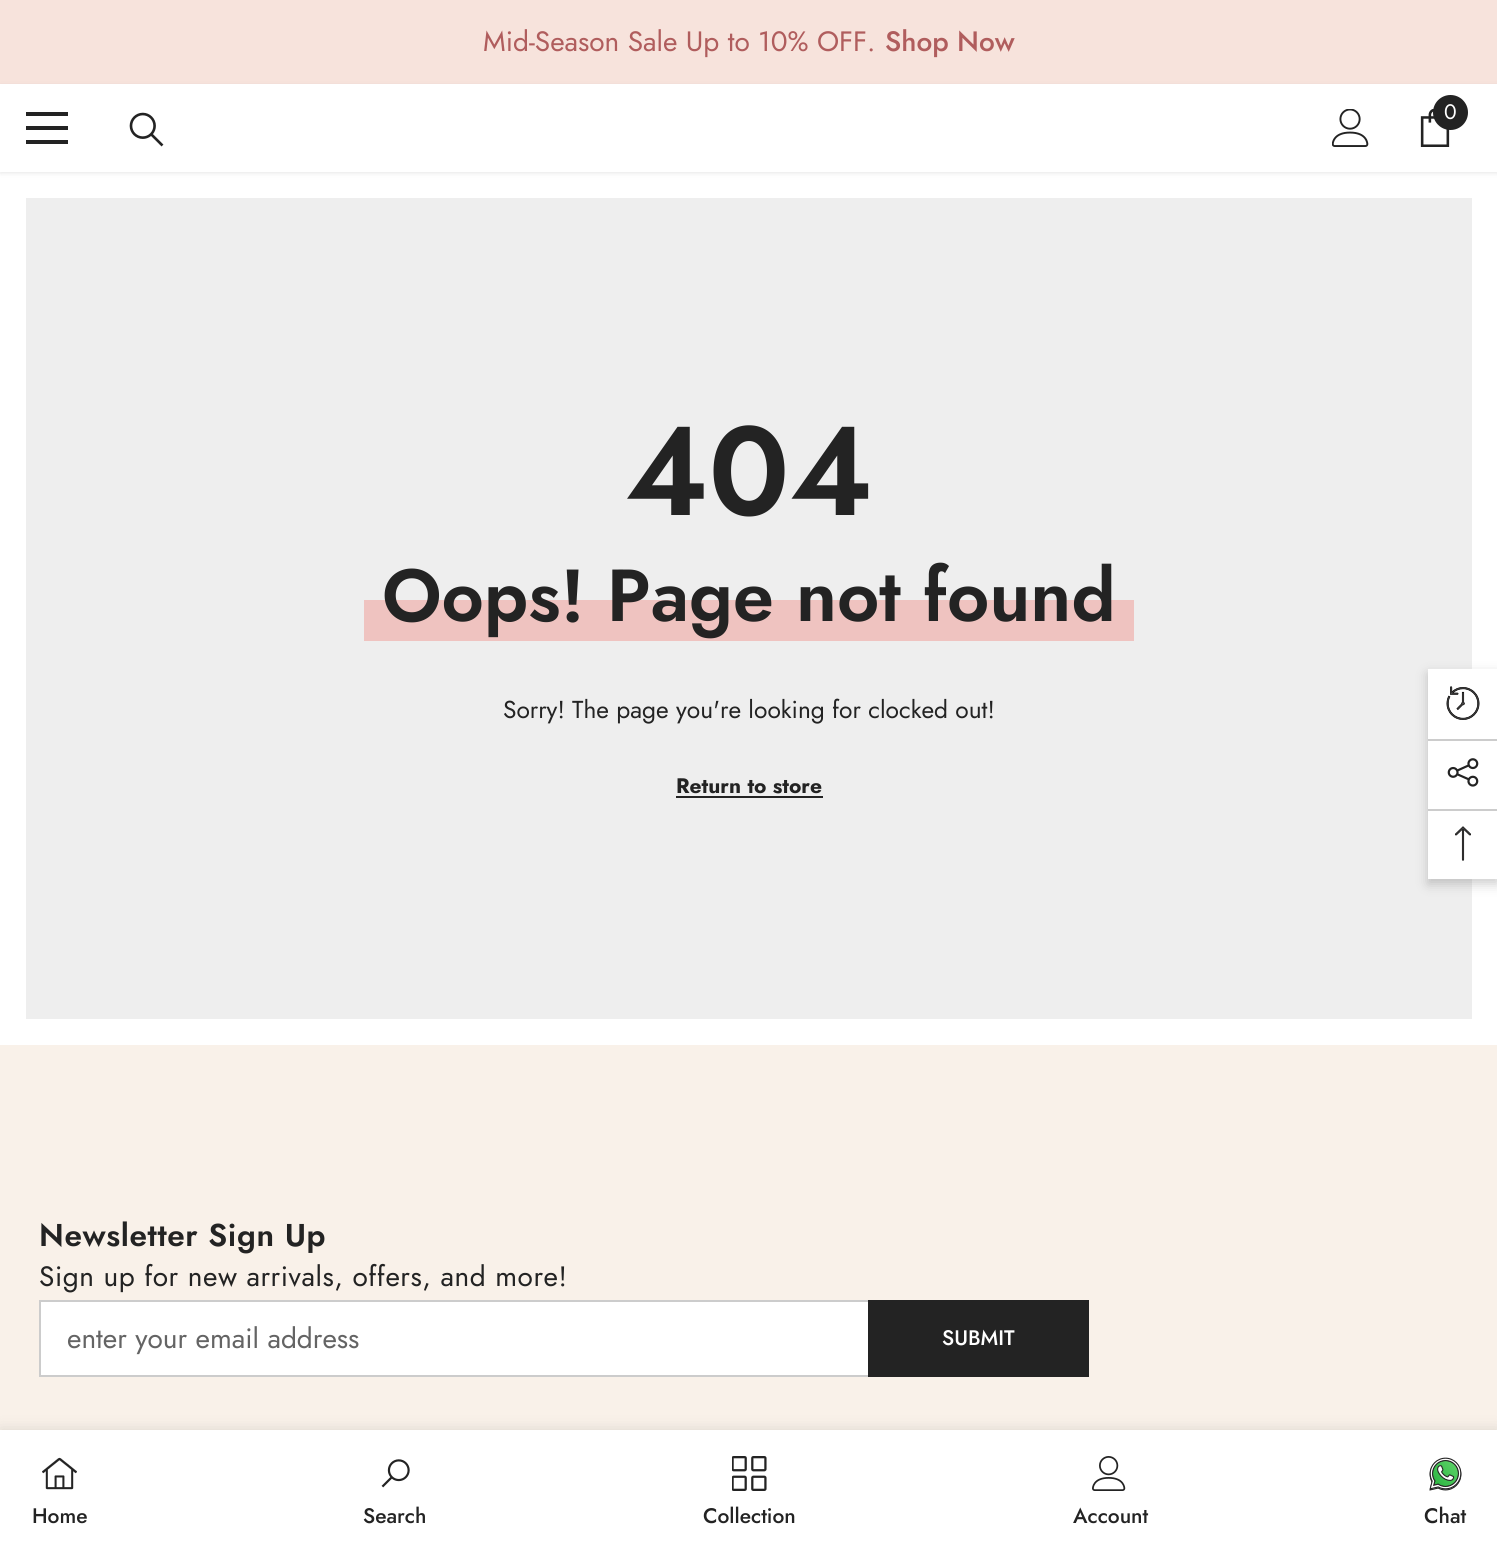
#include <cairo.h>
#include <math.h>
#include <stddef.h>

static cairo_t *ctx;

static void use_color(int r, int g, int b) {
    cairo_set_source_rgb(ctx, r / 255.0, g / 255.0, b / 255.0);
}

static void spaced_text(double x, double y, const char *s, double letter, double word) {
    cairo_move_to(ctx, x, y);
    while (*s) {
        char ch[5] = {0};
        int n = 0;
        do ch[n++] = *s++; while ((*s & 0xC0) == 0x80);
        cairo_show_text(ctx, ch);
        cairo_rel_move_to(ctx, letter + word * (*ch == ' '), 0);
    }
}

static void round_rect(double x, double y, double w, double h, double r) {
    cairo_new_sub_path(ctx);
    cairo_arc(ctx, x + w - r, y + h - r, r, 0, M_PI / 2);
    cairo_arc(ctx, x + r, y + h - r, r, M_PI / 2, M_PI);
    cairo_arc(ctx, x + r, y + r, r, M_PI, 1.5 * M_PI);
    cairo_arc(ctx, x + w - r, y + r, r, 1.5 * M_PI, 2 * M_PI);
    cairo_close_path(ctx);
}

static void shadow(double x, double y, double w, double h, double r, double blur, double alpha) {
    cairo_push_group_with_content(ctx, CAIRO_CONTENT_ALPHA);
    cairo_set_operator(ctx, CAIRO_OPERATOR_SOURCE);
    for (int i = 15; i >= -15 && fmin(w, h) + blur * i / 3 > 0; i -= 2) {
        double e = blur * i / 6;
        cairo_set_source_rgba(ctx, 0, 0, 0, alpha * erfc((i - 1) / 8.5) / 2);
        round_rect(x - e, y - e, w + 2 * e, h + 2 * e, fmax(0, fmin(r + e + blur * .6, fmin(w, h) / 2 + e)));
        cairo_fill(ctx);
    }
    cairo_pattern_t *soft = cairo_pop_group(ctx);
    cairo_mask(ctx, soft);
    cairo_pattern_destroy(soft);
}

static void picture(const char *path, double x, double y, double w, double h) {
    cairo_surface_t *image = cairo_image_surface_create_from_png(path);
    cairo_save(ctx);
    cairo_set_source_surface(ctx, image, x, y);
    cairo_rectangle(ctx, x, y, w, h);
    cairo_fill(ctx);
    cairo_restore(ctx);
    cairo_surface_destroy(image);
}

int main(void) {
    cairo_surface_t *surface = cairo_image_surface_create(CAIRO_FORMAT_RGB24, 1497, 1544);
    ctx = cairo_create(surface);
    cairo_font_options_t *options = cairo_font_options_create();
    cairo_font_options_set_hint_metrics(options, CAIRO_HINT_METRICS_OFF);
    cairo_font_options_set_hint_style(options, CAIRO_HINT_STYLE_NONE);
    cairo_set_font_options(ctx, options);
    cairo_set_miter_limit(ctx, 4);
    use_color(255, 255, 255);
    cairo_paint(ctx);
    use_color(247, 227, 220);
    cairo_rectangle(ctx, 0, 0, 1497, 84);
    cairo_fill(ctx);
    cairo_select_font_face(ctx, "Jost", CAIRO_FONT_SLANT_NORMAL, CAIRO_FONT_WEIGHT_NORMAL);
    cairo_set_font_size(ctx, 28);
    use_color(176, 93, 93);
    cairo_move_to(ctx, 483, 51);
    cairo_show_text(ctx, "Mid-Season Sale Up to 10% OFF.");
    cairo_select_font_face(ctx, "Jost Medium", CAIRO_FONT_SLANT_NORMAL, CAIRO_FONT_WEIGHT_NORMAL);
    cairo_move_to(ctx, 885, 51);
    cairo_show_text(ctx, "Shop Now");
    use_color(0, 0, 0);
    shadow(0, 86, 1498, 87, 0, 2.5, 0.1);
    use_color(255, 255, 255);
    cairo_rectangle(ctx, 0, 84, 1497, 88);
    cairo_fill(ctx);
    use_color(35, 35, 35);
    cairo_rectangle(ctx, 26, 126, 42, 4);
    cairo_fill(ctx);
    cairo_rectangle(ctx, 26, 112, 42, 4);
    cairo_fill(ctx);
    cairo_rectangle(ctx, 26, 140, 42, 4);
    cairo_fill(ctx);
    picture("img1.png", 129, 112, 35, 35);
    picture("img2.png", 1332, 109, 37, 38);
    picture("img3.png", 1420, 109, 30, 38);
    cairo_arc(ctx, 1450.5, 112.5, 17.5, 0, 2 * M_PI);
    cairo_fill(ctx);
    cairo_select_font_face(ctx, "Jost", CAIRO_FONT_SLANT_NORMAL, CAIRO_FONT_WEIGHT_NORMAL);
    cairo_set_font_size(ctx, 21);
    use_color(255, 255, 255);
    cairo_move_to(ctx, 1444, 119);
    cairo_show_text(ctx, "0");
    use_color(238, 238, 238);
    cairo_rectangle(ctx, 26, 198, 1446, 821);
    cairo_fill(ctx);
    cairo_select_font_face(ctx, "Jost SemiBold", CAIRO_FONT_SLANT_NORMAL, CAIRO_FONT_WEIGHT_NORMAL);
    cairo_set_font_size(ctx, 126);
    use_color(35, 35, 35);
    cairo_move_to(ctx, 625, 515);
    cairo_show_text(ctx, "404");
    use_color(239, 195, 192);
    cairo_rectangle(ctx, 364, 600, 770, 41);
    cairo_fill(ctx);
    cairo_set_font_size(ctx, 73.5);
    use_color(35, 35, 35);
    cairo_move_to(ctx, 382, 621);
    cairo_show_text(ctx, "Oops! Page not found");
    cairo_select_font_face(ctx, "Jost", CAIRO_FONT_SLANT_NORMAL, CAIRO_FONT_WEIGHT_NORMAL);
    cairo_set_font_size(ctx, 24.5);
    cairo_move_to(ctx, 503, 718);
    cairo_show_text(ctx, "Sorry! The page you're looking for clocked out!");
    cairo_select_font_face(ctx, "Jost", CAIRO_FONT_SLANT_NORMAL, CAIRO_FONT_WEIGHT_BOLD);
    cairo_set_font_size(ctx, 21);
    cairo_move_to(ctx, 676, 793);
    cairo_show_text(ctx, "Return to store");
    cairo_rectangle(ctx, 676, 796, 147, 2);
    cairo_fill(ctx);
    use_color(249, 241, 233);
    cairo_rectangle(ctx, 0, 1045, 1497, 385);
    cairo_fill(ctx);
    cairo_select_font_face(ctx, "Jost SemiBold", CAIRO_FONT_SLANT_NORMAL, CAIRO_FONT_WEIGHT_NORMAL);
    cairo_set_font_size(ctx, 31.5);
    use_color(35, 35, 35);
    spaced_text(39, 1246, "Newsletter Sign Up", 0.6, 0);
    cairo_select_font_face(ctx, "Jost", CAIRO_FONT_SLANT_NORMAL, CAIRO_FONT_WEIGHT_NORMAL);
    cairo_set_font_size(ctx, 28);
    spaced_text(39, 1286, "Sign up for new arrivals, offers, and more!", 0.55, 0);
    use_color(255, 255, 255);
    cairo_rectangle(ctx, 40, 1301, 829, 75);
    cairo_fill_preserve(ctx);
    use_color(204, 204, 204);
    cairo_stroke(ctx);
    use_color(100, 100, 100);
    cairo_move_to(ctx, 67, 1348);
    cairo_show_text(ctx, "enter your email address");
    use_color(35, 35, 35);
    cairo_rectangle(ctx, 868, 1300, 221, 77);
    cairo_fill(ctx);
    cairo_select_font_face(ctx, "Jost Medium", CAIRO_FONT_SLANT_NORMAL, CAIRO_FONT_WEIGHT_NORMAL);
    cairo_set_font_size(ctx, 21);
    use_color(255, 255, 255);
    cairo_move_to(ctx, 942, 1345);
    cairo_show_text(ctx, "SUBMIT");
    use_color(0, 0, 0);
    shadow(0, 1430, 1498, 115, 0, 8, 0.12);
    use_color(255, 255, 255);
    cairo_rectangle(ctx, 0, 1430, 1497, 114);
    cairo_fill(ctx);
    picture("img4.png", 42, 1457, 35, 33);
    use_color(35, 35, 35);
    cairo_move_to(ctx, 32, 1523);
    cairo_show_text(ctx, "Home");
    picture("img5.png", 381, 1459, 29, 29);
    cairo_move_to(ctx, 363, 1523);
    cairo_show_text(ctx, "Search");
    picture("img6.png", 732, 1456, 35, 35);
    cairo_move_to(ctx, 703, 1523);
    cairo_show_text(ctx, "Collection");
    picture("img7.png", 1092, 1456, 34, 35);
    cairo_move_to(ctx, 1073, 1523);
    cairo_show_text(ctx, "Account");
    picture("img8.png", 1429, 1457, 33, 34);
    cairo_move_to(ctx, 1424, 1523);
    cairo_show_text(ctx, "Chat");
    use_color(0, 0, 0);
    shadow(1428, 674, 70, 210, 0, 6, 0.2);
    use_color(255, 255, 255);
    cairo_rectangle(ctx, 1428, 669, 69, 210);
    cairo_fill(ctx);
    picture("img9.png", 1446, 686, 34, 34);
    use_color(204, 204, 204);
    cairo_rectangle(ctx, 1428, 739, 69, 2);
    cairo_fill(ctx);
    picture("img10.png", 1447, 758, 32, 29);
    cairo_rectangle(ctx, 1428, 809, 69, 2);
    cairo_fill(ctx);
    picture("img11.png", 1455, 826, 16, 35);
    cairo_surface_write_to_png(surface, "result.png");
    cairo_font_options_destroy(options);
    cairo_destroy(ctx);
    cairo_surface_destroy(surface);
    return 0;
}
